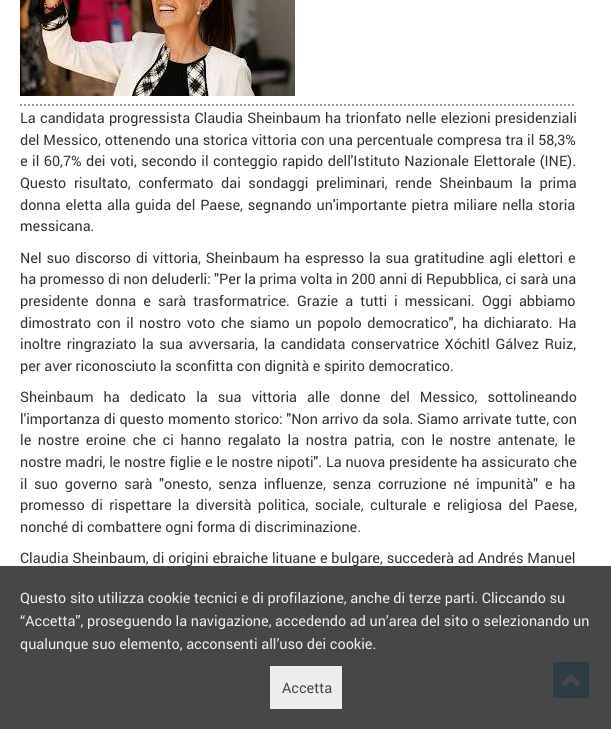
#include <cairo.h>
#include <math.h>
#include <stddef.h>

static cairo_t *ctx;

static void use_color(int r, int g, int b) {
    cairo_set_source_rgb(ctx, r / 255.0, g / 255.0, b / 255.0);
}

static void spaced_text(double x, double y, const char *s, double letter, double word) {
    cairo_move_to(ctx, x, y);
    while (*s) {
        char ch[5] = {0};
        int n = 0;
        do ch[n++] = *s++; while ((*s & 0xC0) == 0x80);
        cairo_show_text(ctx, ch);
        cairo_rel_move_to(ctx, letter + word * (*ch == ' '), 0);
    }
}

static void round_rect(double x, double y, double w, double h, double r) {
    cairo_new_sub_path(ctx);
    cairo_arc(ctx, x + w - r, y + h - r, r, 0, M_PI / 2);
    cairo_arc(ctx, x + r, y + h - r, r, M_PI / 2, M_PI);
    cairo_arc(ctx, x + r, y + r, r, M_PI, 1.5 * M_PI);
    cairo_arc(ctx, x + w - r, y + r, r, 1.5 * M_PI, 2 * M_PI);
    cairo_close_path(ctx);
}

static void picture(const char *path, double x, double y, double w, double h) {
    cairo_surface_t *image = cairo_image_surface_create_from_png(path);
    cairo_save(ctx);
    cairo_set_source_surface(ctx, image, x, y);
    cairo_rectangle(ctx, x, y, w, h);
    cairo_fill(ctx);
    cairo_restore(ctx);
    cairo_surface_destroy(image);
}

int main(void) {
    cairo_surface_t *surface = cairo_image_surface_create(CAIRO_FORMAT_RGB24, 611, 729);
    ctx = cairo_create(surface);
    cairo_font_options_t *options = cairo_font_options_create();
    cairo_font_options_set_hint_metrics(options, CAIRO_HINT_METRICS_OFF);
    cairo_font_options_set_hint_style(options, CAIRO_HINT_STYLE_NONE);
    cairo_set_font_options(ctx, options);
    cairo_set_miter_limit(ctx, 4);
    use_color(255, 255, 255);
    cairo_paint(ctx);
    cairo_new_path(ctx);
    cairo_move_to(ctx, 20, 105);
    cairo_line_to(ctx, 576, 105);
    use_color(153, 153, 153);
    cairo_set_dash(ctx, (double[]){2, 2}, 2, 0);
    cairo_stroke(ctx);
    picture("img1.png", 20, 0, 275, 96);
    cairo_select_font_face(ctx, "Roboto", CAIRO_FONT_SLANT_NORMAL, CAIRO_FONT_WEIGHT_NORMAL);
    cairo_set_font_size(ctx, 14.4);
    use_color(51, 51, 51);
    spaced_text(20, 123, "La candidata progressista Claudia Sheinbaum ha trionfato nelle elezioni presidenziali", 0, 0.75);
    spaced_text(20, 145, "del Messico, ottenendo una storica vittoria con una percentuale compresa tra il 58,3%", 0, 0.25);
    spaced_text(20, 166, "e il 60,7% dei voti, secondo il conteggio rapido dell'Istituto Nazionale Elettorale (INE).", 0, 0.9);
    spaced_text(20, 188, "Questo risultato, confermato dai sondaggi preliminari, rende Sheinbaum la prima", 0, 4);
    spaced_text(20, 210, "donna eletta alla guida del Paese, segnando un'importante pietra miliare nella storia", 0, 1.25);
    cairo_move_to(ctx, 20, 231);
    cairo_show_text(ctx, "messicana.");
    spaced_text(20, 263, "Nel suo discorso di vittoria, Sheinbaum ha espresso la sua gratitudine agli elettori e", 0, 1.3);
    cairo_move_to(ctx, 20, 284);
    cairo_show_text(ctx, "ha promesso di non deluderli: \"Per la prima volta in 200 anni di Repubblica, ci sarà una");
    spaced_text(20, 306, "presidente donna e sarà trasformatrice. Grazie a tutti i messicani. Oggi abbiamo", 0, 3.5);
    spaced_text(20, 328, "dimostrato con il nostro voto che siamo un popolo democratico\", ha dichiarato. Ha", 0, 2);
    spaced_text(20, 349, "inoltre ringraziato la sua avversaria, la candidata conservatrice Xóchitl Gálvez Ruiz,", 0, 2);
    cairo_move_to(ctx, 20, 371);
    cairo_show_text(ctx, "per aver riconosciuto la sconfitta con dignità e spirito democratico.");
    spaced_text(20, 402, "Sheinbaum ha dedicato la sua vittoria alle donne del Messico, sottolineando", 0, 6.5);
    spaced_text(20, 424, "l'importanza di questo momento storico: \"Non arrivo da sola. Siamo arrivate tutte, con", 0, 0.25);
    spaced_text(20, 445, "le nostre eroine che ci hanno regalato la nostra patria, con le nostre antenate, le", 0, 3);
    spaced_text(20, 467, "nostre madri, le nostre figlie e le nostre nipoti\". La nuova presidente ha assicurato che", 0, 0.25);
    spaced_text(20, 489, "il suo governo sarà \"onesto, senza influenze, senza corruzione né impunità\" e ha", 0, 3.25);
    spaced_text(20, 510, "promesso di rispettare la diversità politica, sociale, culturale e religiosa del Paese,", 0, 2.75);
    cairo_move_to(ctx, 20, 532);
    cairo_show_text(ctx, "nonché di combattere ogni forma di discriminazione.");
    spaced_text(20, 563, "Claudia Sheinbaum, di origini ebraiche lituane e bulgare, succederà ad Andrés Manuel", 0, 0.25);
    use_color(0, 145, 215);
    round_rect(551, 660, 40, 40, 4);
    cairo_fill(ctx);
    picture("img2.png", 562, 673, 18, 14);
    round_rect(552, 661, 38, 38, 3);
    use_color(255, 255, 255);
    cairo_set_dash(ctx, NULL, 0, 0);
    cairo_stroke(ctx);
    cairo_set_source_rgba(ctx, 0.2, 0.2, 0.2, 0.9);
    cairo_rectangle(ctx, 0, 566, 611, 163);
    cairo_fill(ctx);
    use_color(236, 236, 236);
    cairo_move_to(ctx, 20, 603);
    cairo_show_text(ctx, "Questo sito utilizza cookie tecnici e di profilazione, anche di terze parti. Cliccando su");
    cairo_move_to(ctx, 20, 626);
    cairo_show_text(ctx, "“Accetta”, proseguendo la navigazione, accedendo ad un’area del sito o selezionando un");
    cairo_move_to(ctx, 20, 649);
    cairo_show_text(ctx, "qualunque suo elemento, acconsenti all’uso dei cookie.");
    cairo_set_source_rgba(ctx, 1, 1, 1, 0.9);
    cairo_rectangle(ctx, 270, 666, 72, 43);
    cairo_fill(ctx);
    use_color(70, 70, 70);
    cairo_move_to(ctx, 282, 693);
    cairo_show_text(ctx, "Accetta");
    cairo_surface_write_to_png(surface, "result.png");
    cairo_font_options_destroy(options);
    cairo_destroy(ctx);
    cairo_surface_destroy(surface);
    return 0;
}
